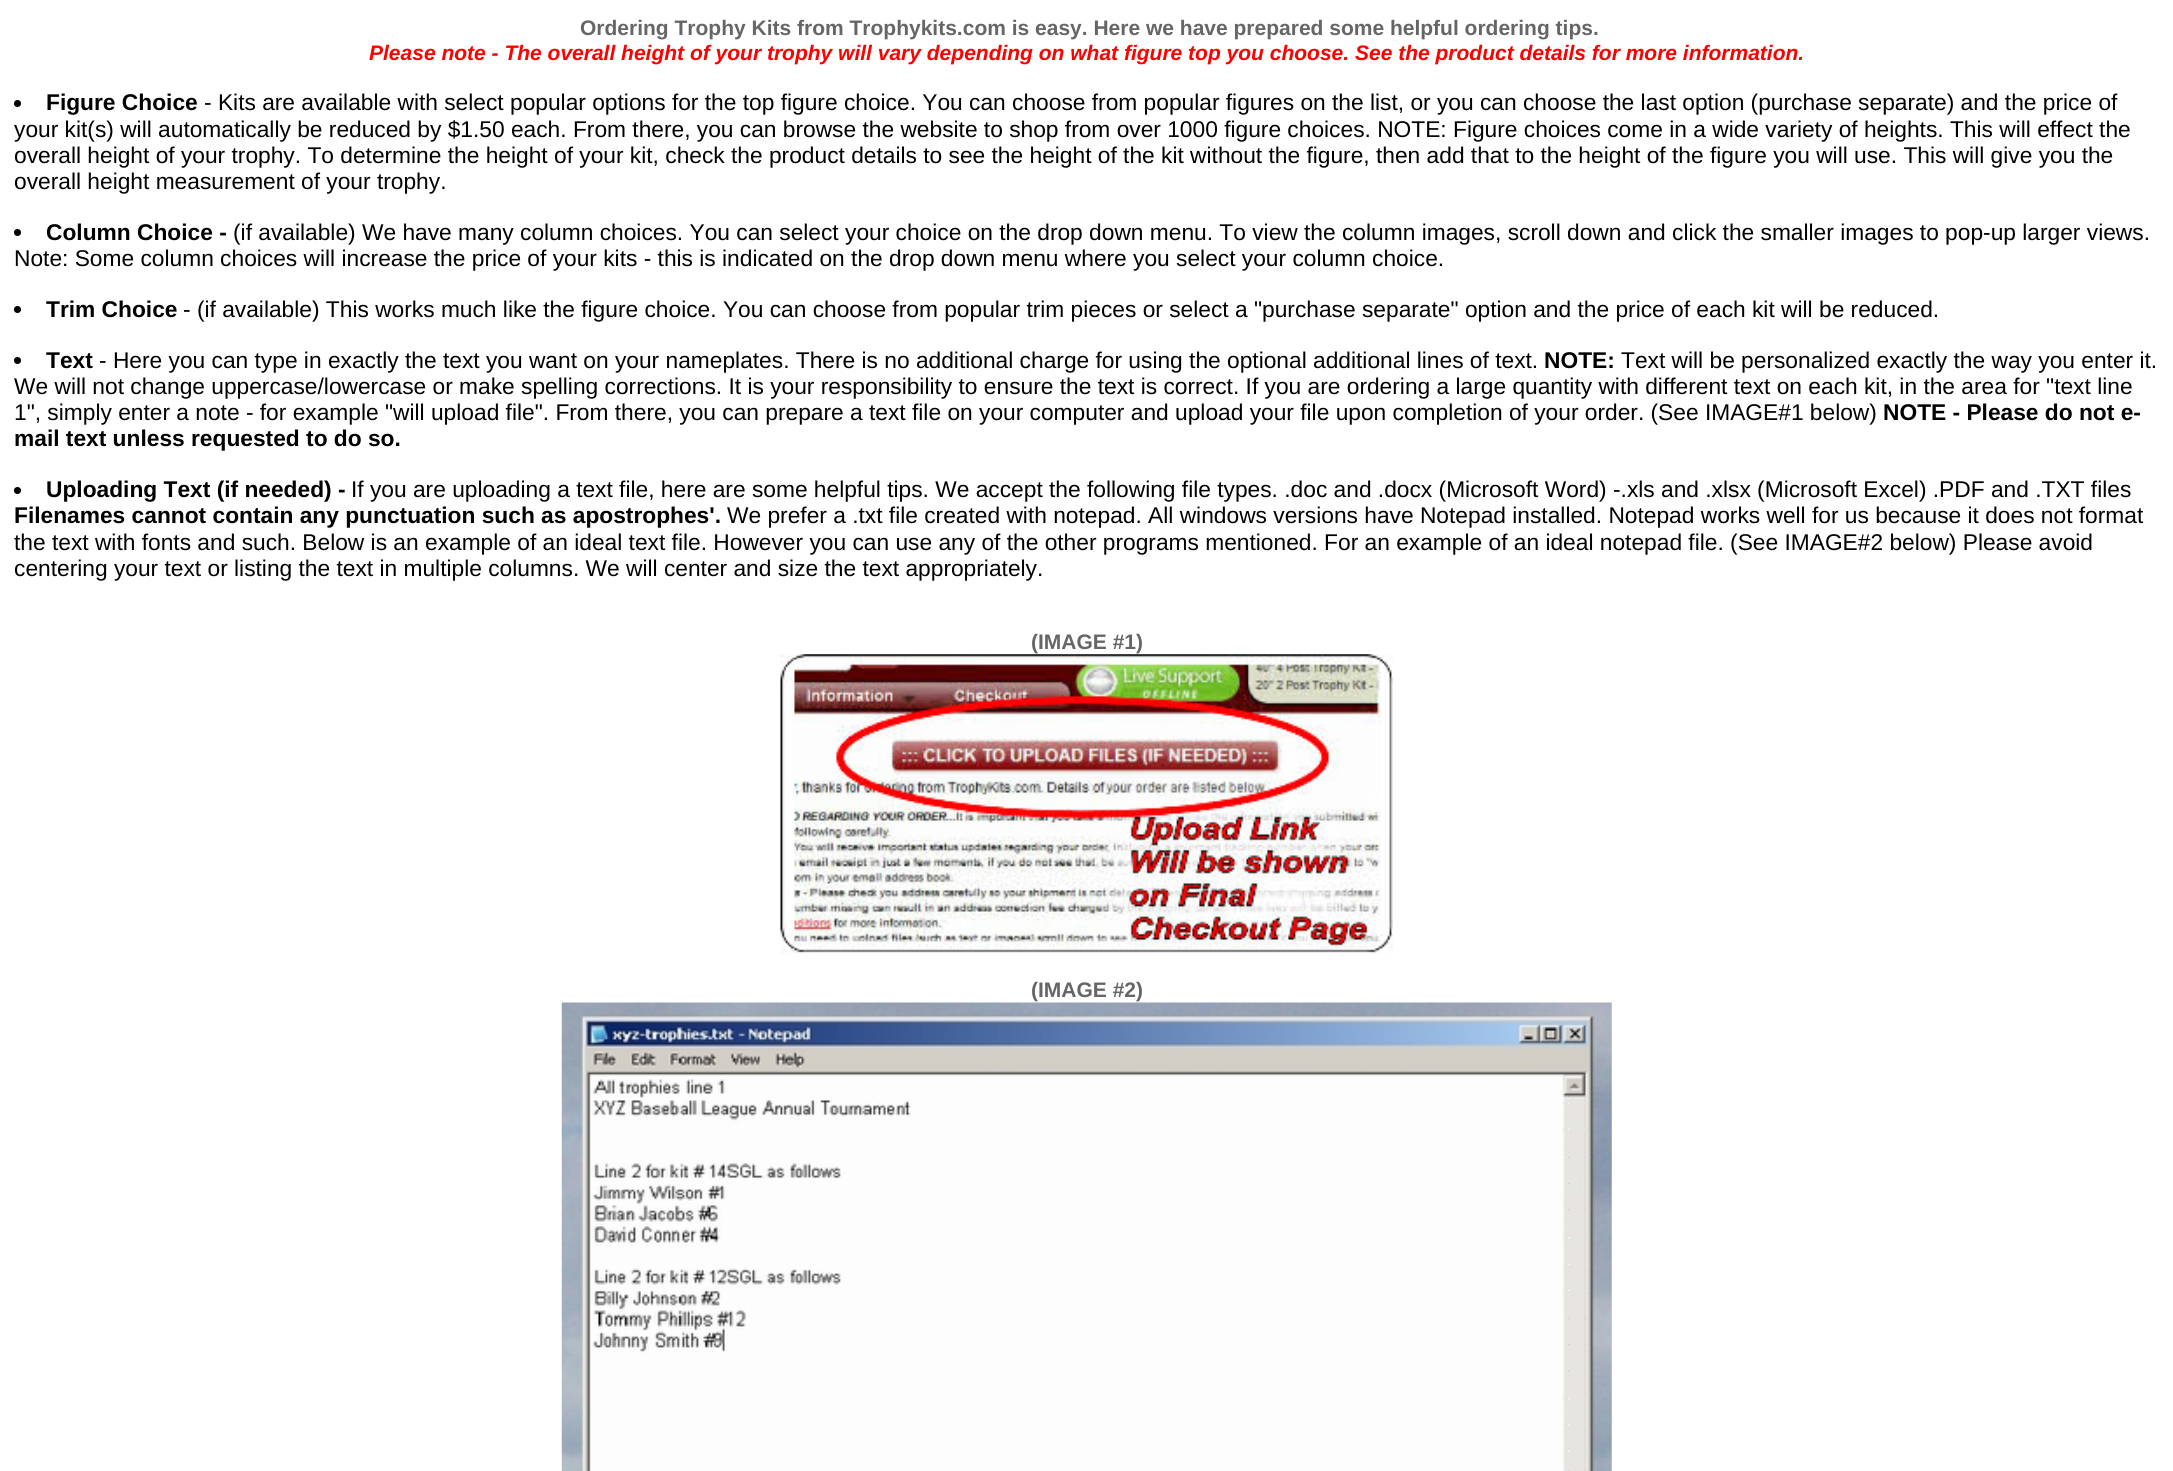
#include <cairo.h>
#include <math.h>
#include <stddef.h>

static cairo_t *ctx;

static void use_color(int r, int g, int b) {
    cairo_set_source_rgb(ctx, r / 255.0, g / 255.0, b / 255.0);
}

static void picture(const char *path, double x, double y, double w, double h) {
    cairo_surface_t *image = cairo_image_surface_create_from_png(path);
    cairo_save(ctx);
    cairo_set_source_surface(ctx, image, x, y);
    cairo_rectangle(ctx, x, y, w, h);
    cairo_fill(ctx);
    cairo_restore(ctx);
    cairo_surface_destroy(image);
}

int main(void) {
    cairo_surface_t *surface = cairo_image_surface_create(CAIRO_FORMAT_RGB24, 2173, 1471);
    ctx = cairo_create(surface);
    cairo_font_options_t *options = cairo_font_options_create();
    cairo_font_options_set_hint_metrics(options, CAIRO_HINT_METRICS_OFF);
    cairo_font_options_set_hint_style(options, CAIRO_HINT_STYLE_NONE);
    cairo_set_font_options(ctx, options);
    cairo_set_miter_limit(ctx, 4);
    use_color(255, 255, 255);
    cairo_paint(ctx);
    cairo_select_font_face(ctx, "Liberation Sans", CAIRO_FONT_SLANT_NORMAL, CAIRO_FONT_WEIGHT_BOLD);
    cairo_set_font_size(ctx, 21);
    use_color(102, 102, 102);
    cairo_move_to(ctx, 580, 35);
    cairo_show_text(ctx, "Ordering Trophy Kits from Trophykits.com is easy. Here we have prepared some helpful ordering tips.");
    cairo_select_font_face(ctx, "Liberation Sans", CAIRO_FONT_SLANT_ITALIC, CAIRO_FONT_WEIGHT_BOLD);
    use_color(255, 0, 0);
    cairo_move_to(ctx, 369, 60);
    cairo_show_text(ctx, "Please note - The overall height of your trophy will vary depending on what figure top you choose. See the product details for more information.");
    use_color(0, 0, 0);
    cairo_new_path(ctx);
    cairo_arc(ctx, 17.5, 103.5, 3.5, 0, 2 * M_PI);
    cairo_fill(ctx);
    cairo_select_font_face(ctx, "Liberation Sans", CAIRO_FONT_SLANT_NORMAL, CAIRO_FONT_WEIGHT_BOLD);
    cairo_set_font_size(ctx, 22.75);
    cairo_move_to(ctx, 46, 110);
    cairo_show_text(ctx, "Figure Choice");
    cairo_select_font_face(ctx, "Liberation Sans", CAIRO_FONT_SLANT_NORMAL, CAIRO_FONT_WEIGHT_NORMAL);
    cairo_move_to(ctx, 204, 110);
    cairo_show_text(ctx, "- Kits are available with select popular options for the top figure choice. You can choose from popular figures on the list, or you can choose the last option (purchase separate) and the price of");
    cairo_move_to(ctx, 14, 137);
    cairo_show_text(ctx, "your kit(s) will automatically be reduced by $1.50 each. From there, you can browse the website to shop from over 1000 figure choices. NOTE: Figure choices come in a wide variety of heights. This will effect the");
    cairo_move_to(ctx, 14, 163);
    cairo_show_text(ctx, "overall height of your trophy. To determine the height of your kit, check the product details to see the height of the kit without the figure, then add that to the height of the figure you will use. This will give you the");
    cairo_move_to(ctx, 14, 189);
    cairo_show_text(ctx, "overall height measurement of your trophy.");
    cairo_new_path(ctx);
    cairo_arc(ctx, 17.5, 232.5, 3.5, 0, 2 * M_PI);
    cairo_fill(ctx);
    cairo_select_font_face(ctx, "Liberation Sans", CAIRO_FONT_SLANT_NORMAL, CAIRO_FONT_WEIGHT_BOLD);
    cairo_move_to(ctx, 46, 240);
    cairo_show_text(ctx, "Column Choice -");
    cairo_select_font_face(ctx, "Liberation Sans", CAIRO_FONT_SLANT_NORMAL, CAIRO_FONT_WEIGHT_NORMAL);
    cairo_move_to(ctx, 233, 240);
    cairo_show_text(ctx, "(if available) We have many column choices. You can select your choice on the drop down menu. To view the column images, scroll down and click the smaller images to pop-up larger views.");
    cairo_move_to(ctx, 14, 266);
    cairo_show_text(ctx, "Note: Some column choices will increase the price of your kits - this is indicated on the drop down menu where you select your column choice.");
    cairo_new_path(ctx);
    cairo_arc(ctx, 17.5, 309.5, 3.5, 0, 2 * M_PI);
    cairo_fill(ctx);
    cairo_select_font_face(ctx, "Liberation Sans", CAIRO_FONT_SLANT_NORMAL, CAIRO_FONT_WEIGHT_BOLD);
    cairo_move_to(ctx, 46, 317);
    cairo_show_text(ctx, "Trim Choice");
    cairo_select_font_face(ctx, "Liberation Sans", CAIRO_FONT_SLANT_NORMAL, CAIRO_FONT_WEIGHT_NORMAL);
    cairo_move_to(ctx, 183, 317);
    cairo_show_text(ctx, "- (if available) This works much like the figure choice. You can choose from popular trim pieces or select a \"purchase separate\" option and the price of each kit will be reduced.");
    cairo_new_path(ctx);
    cairo_arc(ctx, 17.5, 360.5, 3.5, 0, 2 * M_PI);
    cairo_fill(ctx);
    cairo_select_font_face(ctx, "Liberation Sans", CAIRO_FONT_SLANT_NORMAL, CAIRO_FONT_WEIGHT_BOLD);
    cairo_move_to(ctx, 46, 368);
    cairo_show_text(ctx, "Text");
    cairo_select_font_face(ctx, "Liberation Sans", CAIRO_FONT_SLANT_NORMAL, CAIRO_FONT_WEIGHT_NORMAL);
    cairo_move_to(ctx, 99, 368);
    cairo_show_text(ctx, "- Here you can type in exactly the text you want on your nameplates. There is no additional charge for using the optional additional lines of text.");
    cairo_select_font_face(ctx, "Liberation Sans", CAIRO_FONT_SLANT_NORMAL, CAIRO_FONT_WEIGHT_BOLD);
    cairo_move_to(ctx, 1544, 368);
    cairo_show_text(ctx, "NOTE:");
    cairo_select_font_face(ctx, "Liberation Sans", CAIRO_FONT_SLANT_NORMAL, CAIRO_FONT_WEIGHT_NORMAL);
    cairo_move_to(ctx, 1621, 368);
    cairo_show_text(ctx, "Text will be personalized exactly the way you enter it.");
    cairo_move_to(ctx, 14, 394);
    cairo_show_text(ctx, "We will not change uppercase/lowercase or make spelling corrections. It is your responsibility to ensure the text is correct. If you are ordering a large quantity with different text on each kit, in the area for \"text line");
    cairo_move_to(ctx, 14, 420);
    cairo_show_text(ctx, "1\", simply enter a note - for example \"will upload file\". From there, you can prepare a text file on your computer and upload your file upon completion of your order. (See IMAGE#1 below)");
    cairo_select_font_face(ctx, "Liberation Sans", CAIRO_FONT_SLANT_NORMAL, CAIRO_FONT_WEIGHT_BOLD);
    cairo_move_to(ctx, 1883, 420);
    cairo_show_text(ctx, "NOTE - Please do not e-");
    cairo_move_to(ctx, 14, 446);
    cairo_show_text(ctx, "mail text unless requested to do so.");
    cairo_new_path(ctx);
    cairo_arc(ctx, 17.5, 490.5, 3.5, 0, 2 * M_PI);
    cairo_fill(ctx);
    cairo_move_to(ctx, 46, 497);
    cairo_show_text(ctx, "Uploading Text (if needed) -");
    cairo_select_font_face(ctx, "Liberation Sans", CAIRO_FONT_SLANT_NORMAL, CAIRO_FONT_WEIGHT_NORMAL);
    cairo_move_to(ctx, 351, 497);
    cairo_show_text(ctx, "If you are uploading a text file, here are some helpful tips. We accept the following file types. .doc and .docx (Microsoft Word) -.xls and .xlsx (Microsoft Excel) .PDF and .TXT files");
    cairo_select_font_face(ctx, "Liberation Sans", CAIRO_FONT_SLANT_NORMAL, CAIRO_FONT_WEIGHT_BOLD);
    cairo_move_to(ctx, 14, 523);
    cairo_show_text(ctx, "Filenames cannot contain any punctuation such as apostrophes'.");
    cairo_select_font_face(ctx, "Liberation Sans", CAIRO_FONT_SLANT_NORMAL, CAIRO_FONT_WEIGHT_NORMAL);
    cairo_move_to(ctx, 727, 523);
    cairo_show_text(ctx, "We prefer a .txt file created with notepad. All windows versions have Notepad installed. Notepad works well for us because it does not format");
    cairo_move_to(ctx, 14, 550);
    cairo_show_text(ctx, "the text with fonts and such. Below is an example of an ideal text file. However you can use any of the other programs mentioned. For an example of an ideal notepad file. (See IMAGE#2 below) Please avoid");
    cairo_move_to(ctx, 14, 576);
    cairo_show_text(ctx, "centering your text or listing the text in multiple columns. We will center and size the text appropriately.");
    cairo_select_font_face(ctx, "Liberation Sans", CAIRO_FONT_SLANT_NORMAL, CAIRO_FONT_WEIGHT_BOLD);
    cairo_set_font_size(ctx, 21);
    use_color(102, 102, 102);
    cairo_move_to(ctx, 1031, 649);
    cairo_show_text(ctx, "(IMAGE #1)");
    picture("img1.png", 780, 654, 613, 300);
    cairo_move_to(ctx, 1031, 997);
    cairo_show_text(ctx, "(IMAGE #2)");
    picture("img2.png", 561, 1002, 1051, 469);
    cairo_surface_write_to_png(surface, "result.png");
    cairo_font_options_destroy(options);
    cairo_destroy(ctx);
    cairo_surface_destroy(surface);
    return 0;
}
